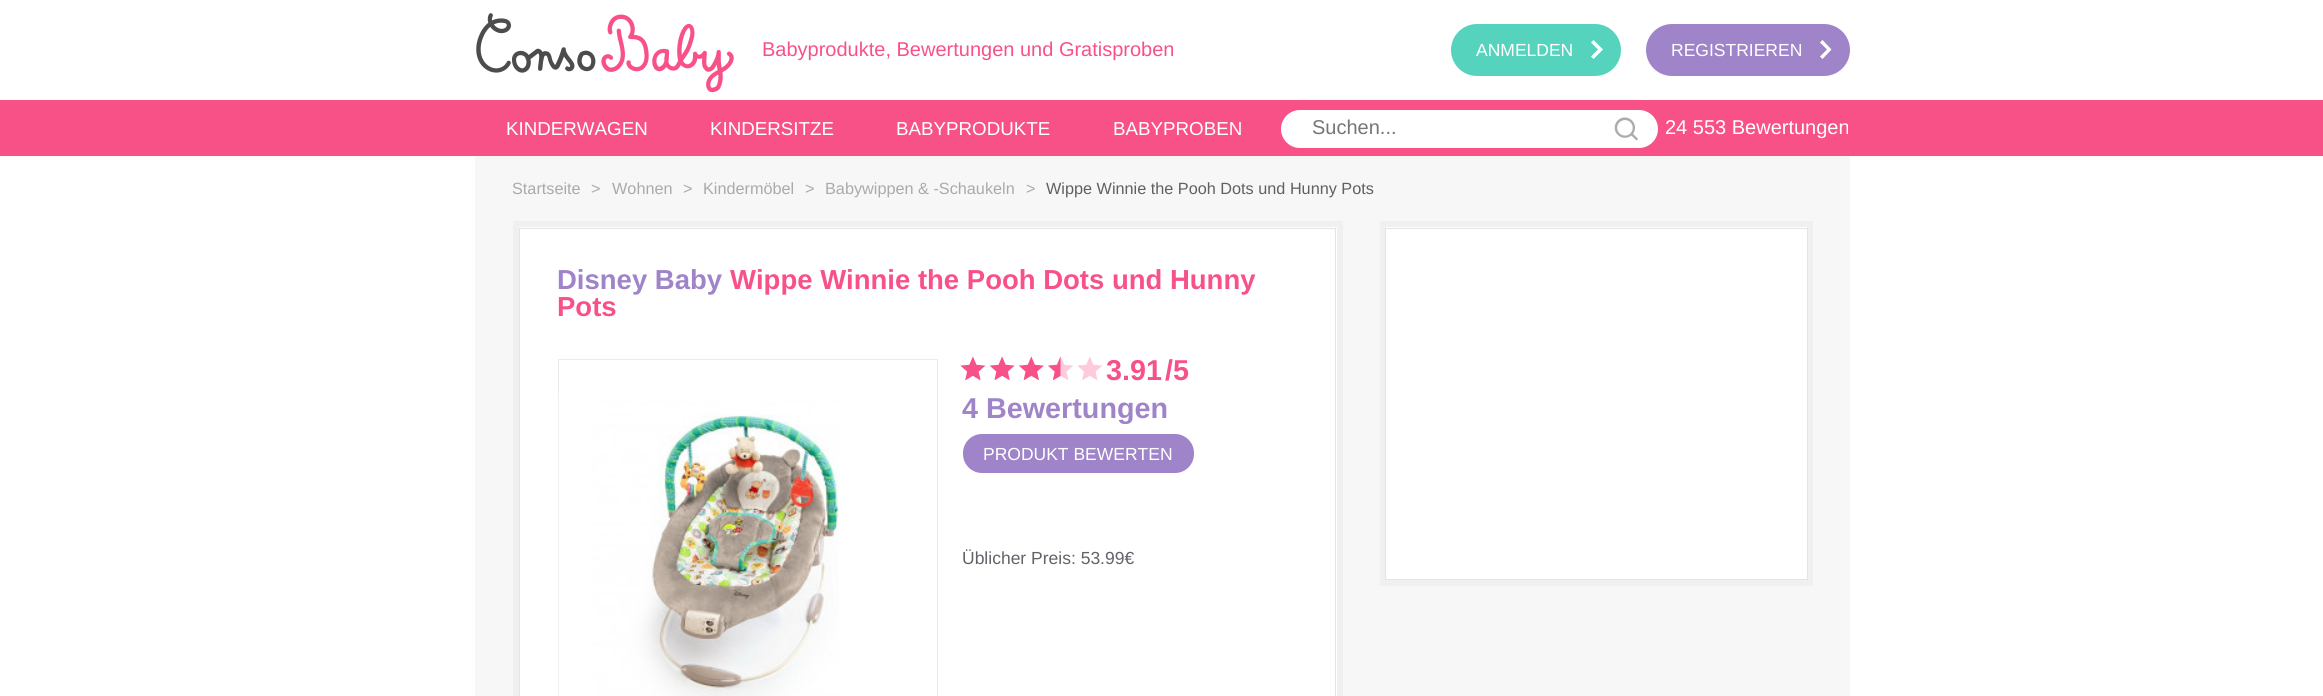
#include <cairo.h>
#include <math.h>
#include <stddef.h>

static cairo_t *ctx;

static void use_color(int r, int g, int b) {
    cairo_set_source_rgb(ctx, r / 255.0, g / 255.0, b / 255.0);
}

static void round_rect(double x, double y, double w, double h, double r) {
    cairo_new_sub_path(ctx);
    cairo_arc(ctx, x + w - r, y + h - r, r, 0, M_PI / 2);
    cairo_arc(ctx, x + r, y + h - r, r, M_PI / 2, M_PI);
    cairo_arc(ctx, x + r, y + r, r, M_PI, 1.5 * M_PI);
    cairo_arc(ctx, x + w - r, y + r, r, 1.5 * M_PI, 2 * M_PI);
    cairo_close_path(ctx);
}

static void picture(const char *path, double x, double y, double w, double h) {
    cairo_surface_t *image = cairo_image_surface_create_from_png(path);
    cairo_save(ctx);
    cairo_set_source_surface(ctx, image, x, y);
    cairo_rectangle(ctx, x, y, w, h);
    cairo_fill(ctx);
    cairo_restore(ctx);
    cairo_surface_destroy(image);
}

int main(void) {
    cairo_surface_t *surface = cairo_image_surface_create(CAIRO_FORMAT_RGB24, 2323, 696);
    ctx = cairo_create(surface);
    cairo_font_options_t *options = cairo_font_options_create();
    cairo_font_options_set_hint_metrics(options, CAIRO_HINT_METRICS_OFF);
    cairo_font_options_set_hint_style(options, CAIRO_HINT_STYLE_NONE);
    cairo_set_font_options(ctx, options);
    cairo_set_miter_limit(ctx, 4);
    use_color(255, 255, 255);
    cairo_paint(ctx);
    picture("img1.png", 476, 13, 258, 80);
    cairo_select_font_face(ctx, "Liberation Sans", CAIRO_FONT_SLANT_NORMAL, CAIRO_FONT_WEIGHT_NORMAL);
    cairo_set_font_size(ctx, 20);
    use_color(248, 81, 136);
    cairo_move_to(ctx, 762, 56);
    cairo_show_text(ctx, "Babyprodukte, Bewertungen und Gratisproben");
    use_color(86, 211, 189);
    round_rect(1451, 24, 170, 52, 26);
    cairo_fill(ctx);
    cairo_set_font_size(ctx, 17.5);
    use_color(255, 255, 255);
    cairo_move_to(ctx, 1476, 56);
    cairo_show_text(ctx, "ANMELDEN");
    cairo_new_path(ctx);
    cairo_move_to(ctx, 1593.5, 59);
    cairo_line_to(ctx, 1591, 56.5);
    cairo_line_to(ctx, 1598, 49.5);
    cairo_line_to(ctx, 1591, 42.5);
    cairo_line_to(ctx, 1593.5, 40);
    cairo_line_to(ctx, 1603, 49.5);
    cairo_close_path(ctx);
    cairo_fill(ctx);
    use_color(159, 132, 201);
    round_rect(1646, 24, 204, 52, 26);
    cairo_fill(ctx);
    use_color(255, 255, 255);
    cairo_move_to(ctx, 1671, 56);
    cairo_show_text(ctx, "REGISTRIEREN");
    cairo_new_path(ctx);
    cairo_move_to(ctx, 1822.5, 59);
    cairo_line_to(ctx, 1820, 56.5);
    cairo_line_to(ctx, 1827, 49.5);
    cairo_line_to(ctx, 1820, 42.5);
    cairo_line_to(ctx, 1822.5, 40);
    cairo_line_to(ctx, 1831.5, 49.5);
    cairo_close_path(ctx);
    cairo_fill(ctx);
    use_color(248, 81, 136);
    cairo_rectangle(ctx, 0, 100, 2323, 56);
    cairo_fill(ctx);
    cairo_set_font_size(ctx, 18.75);
    use_color(255, 255, 255);
    cairo_move_to(ctx, 506, 135);
    cairo_show_text(ctx, "KINDERWAGEN");
    cairo_move_to(ctx, 710, 135);
    cairo_show_text(ctx, "KINDERSITZE");
    cairo_move_to(ctx, 896, 135);
    cairo_show_text(ctx, "BABYPRODUKTE");
    cairo_move_to(ctx, 1113, 135);
    cairo_show_text(ctx, "BABYPROBEN");
    round_rect(1281, 110, 377, 38, 19);
    cairo_fill(ctx);
    cairo_set_font_size(ctx, 20);
    use_color(117, 117, 117);
    cairo_move_to(ctx, 1312, 134);
    cairo_show_text(ctx, "Suchen...");
    picture("img2.png", 1614, 117, 24, 24);
    use_color(255, 255, 255);
    cairo_move_to(ctx, 1665, 134);
    cairo_show_text(ctx, "24 553 Bewertungen");
    use_color(247, 247, 247);
    cairo_rectangle(ctx, 475, 156, 1375, 540);
    cairo_fill(ctx);
    cairo_set_font_size(ctx, 16.25);
    use_color(170, 170, 170);
    cairo_move_to(ctx, 512, 194);
    cairo_show_text(ctx, "Startseite");
    cairo_move_to(ctx, 591, 194);
    cairo_show_text(ctx, ">");
    cairo_move_to(ctx, 612, 194);
    cairo_show_text(ctx, "Wohnen");
    cairo_move_to(ctx, 683, 194);
    cairo_show_text(ctx, ">");
    cairo_move_to(ctx, 703, 194);
    cairo_show_text(ctx, "Kindermöbel");
    cairo_move_to(ctx, 805, 194);
    cairo_show_text(ctx, ">");
    cairo_move_to(ctx, 825, 194);
    cairo_show_text(ctx, "Babywippen & -Schaukeln");
    cairo_move_to(ctx, 1026, 194);
    cairo_show_text(ctx, ">");
    use_color(96, 96, 96);
    cairo_move_to(ctx, 1046, 194);
    cairo_show_text(ctx, "Wippe Winnie the Pooh Dots und Hunny Pots");
    use_color(255, 255, 255);
    cairo_rectangle(ctx, 516, 224, 824, 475);
    cairo_fill_preserve(ctx);
    use_color(240, 240, 240);
    cairo_set_line_width(ctx, 6);
    cairo_stroke(ctx);
    cairo_rectangle(ctx, 519.5, 228.5, 816, 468);
    use_color(228, 228, 228);
    cairo_set_line_width(ctx, 1);
    cairo_stroke(ctx);
    cairo_select_font_face(ctx, "Liberation Sans", CAIRO_FONT_SLANT_NORMAL, CAIRO_FONT_WEIGHT_BOLD);
    cairo_set_font_size(ctx, 27.5);
    use_color(159, 132, 201);
    cairo_move_to(ctx, 557, 289);
    cairo_show_text(ctx, "Disney Baby");
    use_color(248, 81, 136);
    cairo_move_to(ctx, 730, 289);
    cairo_show_text(ctx, "Wippe Winnie the Pooh Dots und Hunny");
    cairo_move_to(ctx, 557, 316);
    cairo_show_text(ctx, "Pots");
    cairo_rectangle(ctx, 558.5, 359.5, 379, 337);
    use_color(235, 235, 235);
    cairo_stroke(ctx);
    picture("img3.png", 558, 395, 281, 301);
    picture("img4.png", 960, 356, 142, 24);
    cairo_set_font_size(ctx, 28.75);
    use_color(248, 81, 136);
    cairo_move_to(ctx, 1106, 380);
    cairo_show_text(ctx, "3.91");
    cairo_move_to(ctx, 1165, 380);
    cairo_show_text(ctx, "/5");
    use_color(159, 132, 201);
    cairo_move_to(ctx, 962, 418);
    cairo_show_text(ctx, "4 Bewertungen");
    round_rect(963, 434, 231, 39, 19);
    cairo_fill(ctx);
    cairo_select_font_face(ctx, "Liberation Sans", CAIRO_FONT_SLANT_NORMAL, CAIRO_FONT_WEIGHT_NORMAL);
    cairo_set_font_size(ctx, 17.5);
    use_color(255, 255, 255);
    cairo_move_to(ctx, 983, 460);
    cairo_show_text(ctx, "PRODUKT BEWERTEN");
    use_color(97, 99, 104);
    cairo_move_to(ctx, 962, 564);
    cairo_show_text(ctx, "Üblicher Preis: 53.99€");
    use_color(255, 255, 255);
    cairo_rectangle(ctx, 1386, 227, 421, 352);
    cairo_fill(ctx);
    cairo_rectangle(ctx, 1383, 224, 427, 359);
    use_color(240, 240, 240);
    cairo_set_line_width(ctx, 6);
    cairo_stroke(ctx);
    cairo_rectangle(ctx, 1385.5, 228.5, 422, 351);
    use_color(228, 228, 228);
    cairo_set_line_width(ctx, 1);
    cairo_stroke(ctx);
    cairo_surface_write_to_png(surface, "result.png");
    cairo_font_options_destroy(options);
    cairo_destroy(ctx);
    cairo_surface_destroy(surface);
    return 0;
}
